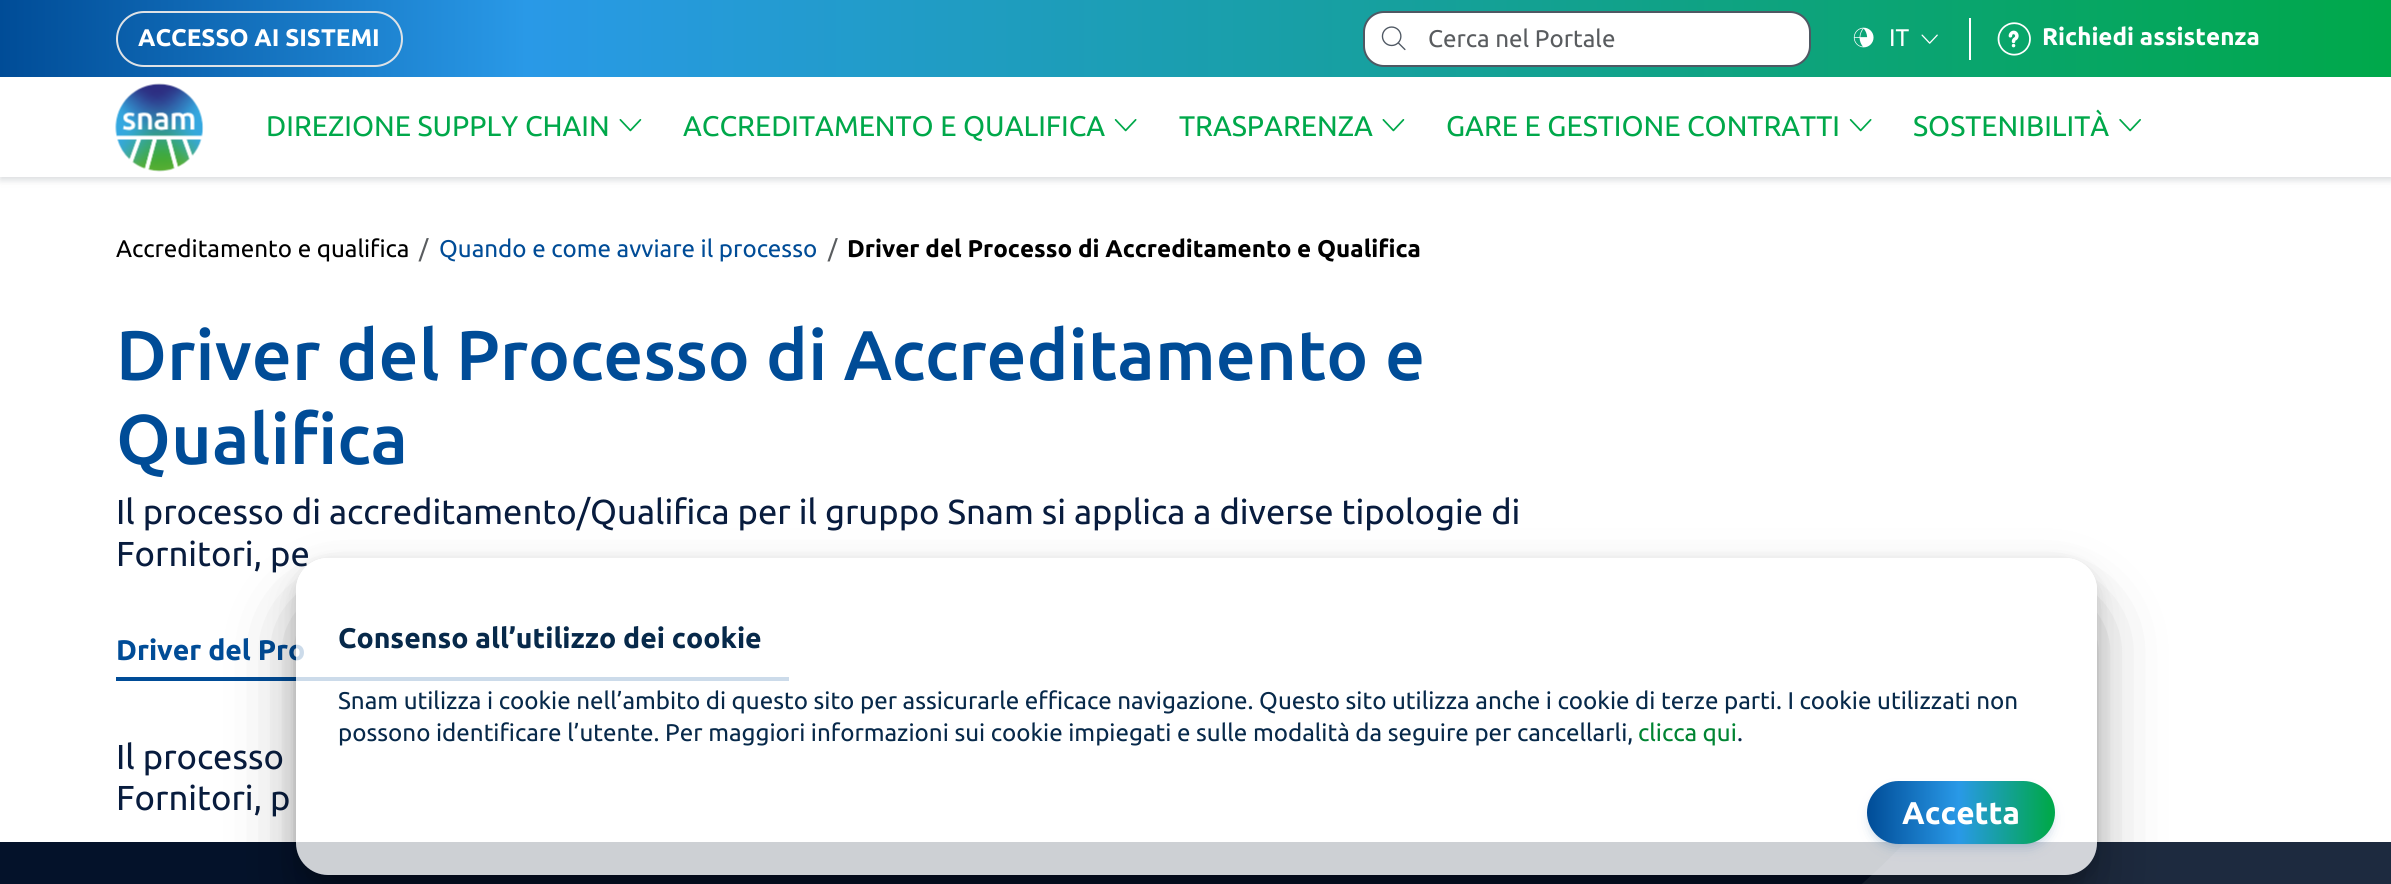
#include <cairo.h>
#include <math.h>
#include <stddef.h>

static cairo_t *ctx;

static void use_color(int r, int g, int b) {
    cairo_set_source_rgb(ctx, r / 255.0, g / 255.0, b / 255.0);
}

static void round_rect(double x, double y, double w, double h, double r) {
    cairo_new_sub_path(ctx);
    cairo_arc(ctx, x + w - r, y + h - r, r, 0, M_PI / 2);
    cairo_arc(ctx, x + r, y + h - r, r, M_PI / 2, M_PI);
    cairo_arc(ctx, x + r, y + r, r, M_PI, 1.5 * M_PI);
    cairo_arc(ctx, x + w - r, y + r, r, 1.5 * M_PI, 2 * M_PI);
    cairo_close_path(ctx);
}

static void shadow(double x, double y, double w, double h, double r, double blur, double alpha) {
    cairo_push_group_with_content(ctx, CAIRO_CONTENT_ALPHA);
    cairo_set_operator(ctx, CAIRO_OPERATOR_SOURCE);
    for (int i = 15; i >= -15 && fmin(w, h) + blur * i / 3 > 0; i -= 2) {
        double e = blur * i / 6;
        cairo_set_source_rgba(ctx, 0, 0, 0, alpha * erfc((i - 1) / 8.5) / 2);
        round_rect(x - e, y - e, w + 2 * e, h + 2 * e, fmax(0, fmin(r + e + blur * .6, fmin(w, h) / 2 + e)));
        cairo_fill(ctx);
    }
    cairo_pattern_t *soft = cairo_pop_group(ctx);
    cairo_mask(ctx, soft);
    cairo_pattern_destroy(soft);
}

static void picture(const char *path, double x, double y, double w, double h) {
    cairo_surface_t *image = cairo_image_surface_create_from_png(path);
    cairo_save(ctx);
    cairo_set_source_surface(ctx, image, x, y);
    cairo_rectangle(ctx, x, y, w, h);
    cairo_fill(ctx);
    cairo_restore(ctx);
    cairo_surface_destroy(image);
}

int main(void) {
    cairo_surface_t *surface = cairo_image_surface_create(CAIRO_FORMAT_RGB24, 2391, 884);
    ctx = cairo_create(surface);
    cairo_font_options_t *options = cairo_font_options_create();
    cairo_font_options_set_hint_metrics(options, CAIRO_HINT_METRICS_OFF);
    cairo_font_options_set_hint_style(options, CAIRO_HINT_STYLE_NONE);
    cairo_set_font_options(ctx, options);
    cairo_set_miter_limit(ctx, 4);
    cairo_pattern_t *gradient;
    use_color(255, 255, 255);
    cairo_paint(ctx);
    use_color(86, 95, 106);
    shadow(0, 4, 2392, 176, 0, 3.5, 0.22);
    use_color(255, 255, 255);
    cairo_rectangle(ctx, 0, 77, 2391, 100);
    cairo_fill(ctx);
    gradient = cairo_pattern_create_linear(0, 39, 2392, 38);
    cairo_pattern_add_color_stop_rgba(gradient, 0, 0, 0.298, 0.592, 1);
    cairo_pattern_add_color_stop_rgba(gradient, 0.22, 0.161, 0.6, 0.906, 1);
    cairo_pattern_add_color_stop_rgba(gradient, 1, 0, 0.659, 0.29, 1);
    cairo_set_source(ctx, gradient);
    cairo_pattern_destroy(gradient);
    cairo_rectangle(ctx, 0, 0, 2391, 77);
    cairo_fill(ctx);
    round_rect(117, 12, 285, 54, 27);
    use_color(222, 226, 230);
    cairo_stroke(ctx);
    cairo_select_font_face(ctx, "Ubuntu", CAIRO_FONT_SLANT_NORMAL, CAIRO_FONT_WEIGHT_BOLD);
    cairo_set_font_size(ctx, 24.15);
    use_color(255, 255, 255);
    cairo_move_to(ctx, 138, 46);
    cairo_show_text(ctx, "ACCESSO AI SISTEMI");
    round_rect(1364, 12, 446, 54, 20);
    cairo_fill_preserve(ctx);
    use_color(79, 88, 99);
    cairo_stroke(ctx);
    picture("img1.png", 1381, 26, 25, 25);
    cairo_select_font_face(ctx, "Ubuntu", CAIRO_FONT_SLANT_NORMAL, CAIRO_FONT_WEIGHT_NORMAL);
    use_color(89, 92, 95);
    cairo_move_to(ctx, 1428, 47);
    cairo_show_text(ctx, "Cerca nel Portale");
    use_color(255, 255, 255);
    cairo_rectangle(ctx, 1969, 18, 2, 42);
    cairo_fill(ctx);
    picture("img2.png", 1853, 27, 21, 21);
    cairo_move_to(ctx, 1889, 46);
    cairo_show_text(ctx, "IT");
    picture("img3.png", 1921, 34, 17, 10);
    picture("img4.png", 1997, 22, 34, 34);
    cairo_select_font_face(ctx, "Ubuntu", CAIRO_FONT_SLANT_NORMAL, CAIRO_FONT_WEIGHT_BOLD);
    cairo_move_to(ctx, 2042, 45);
    cairo_show_text(ctx, "Richiedi assistenza");
    picture("img5.png", 115, 83, 89, 89);
    cairo_select_font_face(ctx, "Ubuntu", CAIRO_FONT_SLANT_NORMAL, CAIRO_FONT_WEIGHT_NORMAL);
    cairo_set_font_size(ctx, 28.4);
    use_color(0, 168, 74);
    cairo_move_to(ctx, 266, 136);
    cairo_show_text(ctx, "DIREZIONE SUPPLY CHAIN");
    picture("img6.png", 619, 119, 23, 13);
    cairo_move_to(ctx, 683, 136);
    cairo_show_text(ctx, "ACCREDITAMENTO E QUALIFICA");
    picture("img7.png", 1114, 119, 23, 13);
    cairo_move_to(ctx, 1179, 136);
    cairo_show_text(ctx, "TRASPARENZA");
    picture("img6.png", 1382, 119, 23, 13);
    cairo_move_to(ctx, 1446, 136);
    cairo_show_text(ctx, "GARE E GESTIONE CONTRATTI");
    picture("img7.png", 1849, 119, 23, 13);
    cairo_move_to(ctx, 1913, 136);
    cairo_show_text(ctx, "SOSTENIBILITÀ");
    picture("img8.png", 2119, 119, 22, 13);
    cairo_set_font_size(ctx, 24.15);
    use_color(0, 0, 0);
    cairo_move_to(ctx, 116, 257);
    cairo_show_text(ctx, "Accreditamento e qualifica");
    use_color(89, 92, 95);
    cairo_move_to(ctx, 419, 257);
    cairo_show_text(ctx, "/");
    use_color(0, 76, 151);
    cairo_move_to(ctx, 439, 257);
    cairo_show_text(ctx, "Quando e come avviare il processo");
    use_color(89, 92, 95);
    cairo_move_to(ctx, 828, 257);
    cairo_show_text(ctx, "/");
    cairo_select_font_face(ctx, "Ubuntu", CAIRO_FONT_SLANT_NORMAL, CAIRO_FONT_WEIGHT_BOLD);
    use_color(0, 0, 0);
    cairo_move_to(ctx, 847, 257);
    cairo_show_text(ctx, "Driver del Processo di Accreditamento e Qualifica");
    cairo_select_font_face(ctx, "Ubuntu Medium", CAIRO_FONT_SLANT_NORMAL, CAIRO_FONT_WEIGHT_NORMAL);
    cairo_set_font_size(ctx, 70.3);
    use_color(0, 76, 151);
    cairo_move_to(ctx, 116, 380);
    cairo_show_text(ctx, "Driver del Processo di Accreditamento");
    cairo_move_to(ctx, 1385, 380);
    cairo_show_text(ctx, "e");
    cairo_move_to(ctx, 116, 464);
    cairo_show_text(ctx, "Qualifica");
    cairo_select_font_face(ctx, "Ubuntu", CAIRO_FONT_SLANT_NORMAL, CAIRO_FONT_WEIGHT_NORMAL);
    cairo_set_font_size(ctx, 34.65);
    use_color(8, 28, 62);
    cairo_move_to(ctx, 116, 524);
    cairo_show_text(ctx, "Il processo di accreditamento/Qualifica per il gruppo Snam si applica a diverse tipologie di");
    cairo_move_to(ctx, 116, 566);
    cairo_show_text(ctx, "Fornitori, pe");
    cairo_select_font_face(ctx, "Ubuntu", CAIRO_FONT_SLANT_NORMAL, CAIRO_FONT_WEIGHT_BOLD);
    cairo_set_font_size(ctx, 28.4);
    use_color(0, 76, 151);
    cairo_move_to(ctx, 116, 660);
    cairo_show_text(ctx, "Driver del Pro");
    cairo_rectangle(ctx, 116, 677, 673, 4);
    cairo_fill(ctx);
    cairo_select_font_face(ctx, "Ubuntu", CAIRO_FONT_SLANT_NORMAL, CAIRO_FONT_WEIGHT_NORMAL);
    cairo_set_font_size(ctx, 34.65);
    use_color(8, 28, 62);
    cairo_move_to(ctx, 116, 769);
    cairo_show_text(ctx, "Il processo");
    cairo_move_to(ctx, 116, 810);
    cairo_show_text(ctx, "Fornitori, p");
    use_color(4, 18, 42);
    cairo_rectangle(ctx, 0, 842, 1904, 42);
    cairo_fill(ctx);
    use_color(29, 42, 63);
    cairo_set_fill_rule(ctx, CAIRO_FILL_RULE_EVEN_ODD);
    cairo_new_path(ctx);
    cairo_move_to(ctx, 1918, 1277);
    cairo_curve_to(ctx, 1845, 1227, 1739, 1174, 1731, 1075);
    cairo_curve_to(ctx, 1728, 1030, 1750, 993, 1779, 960);
    cairo_curve_to(ctx, 1818, 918, 1866, 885, 1905, 842);
    cairo_line_to(ctx, 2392, 842);
    cairo_line_to(ctx, 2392, 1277);
    cairo_close_path(ctx);
    cairo_fill(ctx);
    cairo_save(ctx);
    cairo_new_path(ctx);
    cairo_move_to(ctx, 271, 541);
    cairo_line_to(ctx, 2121, 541);
    cairo_line_to(ctx, 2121, 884);
    cairo_line_to(ctx, 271, 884);
    cairo_close_path(ctx);
    cairo_move_to(ctx, 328, 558);
    cairo_line_to(ctx, 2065, 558);
    cairo_curve_to(ctx, 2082.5, 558, 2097, 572.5, 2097, 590);
    cairo_line_to(ctx, 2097, 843);
    cairo_curve_to(ctx, 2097, 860.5, 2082.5, 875, 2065, 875);
    cairo_line_to(ctx, 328, 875);
    cairo_curve_to(ctx, 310.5, 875, 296, 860.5, 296, 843);
    cairo_line_to(ctx, 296, 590);
    cairo_curve_to(ctx, 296, 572.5, 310.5, 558, 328, 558);
    cairo_close_path(ctx);
    cairo_clip(ctx);
    use_color(0, 0, 0);
    shadow(299, 569, 1794, 310, 28, 9, 0.16);
    cairo_restore(ctx);
    cairo_save(ctx);
    cairo_new_path(ctx);
    cairo_move_to(ctx, 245, 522);
    cairo_line_to(ctx, 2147, 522);
    cairo_line_to(ctx, 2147, 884);
    cairo_line_to(ctx, 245, 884);
    cairo_close_path(ctx);
    cairo_move_to(ctx, 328, 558);
    cairo_line_to(ctx, 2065, 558);
    cairo_curve_to(ctx, 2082.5, 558, 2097, 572.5, 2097, 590);
    cairo_line_to(ctx, 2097, 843);
    cairo_curve_to(ctx, 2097, 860.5, 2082.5, 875, 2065, 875);
    cairo_line_to(ctx, 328, 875);
    cairo_curve_to(ctx, 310.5, 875, 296, 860.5, 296, 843);
    cairo_line_to(ctx, 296, 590);
    cairo_curve_to(ctx, 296, 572.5, 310.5, 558, 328, 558);
    cairo_close_path(ctx);
    cairo_clip(ctx);
    use_color(0, 0, 0);
    shadow(299, 576, 1794, 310, 28, 17.5, 0.15);
    cairo_restore(ctx);
    cairo_save(ctx);
    cairo_new_path(ctx);
    cairo_move_to(ctx, 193, 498);
    cairo_line_to(ctx, 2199, 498);
    cairo_line_to(ctx, 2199, 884);
    cairo_line_to(ctx, 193, 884);
    cairo_close_path(ctx);
    cairo_move_to(ctx, 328, 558);
    cairo_line_to(ctx, 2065, 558);
    cairo_curve_to(ctx, 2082.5, 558, 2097, 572.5, 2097, 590);
    cairo_line_to(ctx, 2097, 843);
    cairo_curve_to(ctx, 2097, 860.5, 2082.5, 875, 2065, 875);
    cairo_line_to(ctx, 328, 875);
    cairo_curve_to(ctx, 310.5, 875, 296, 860.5, 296, 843);
    cairo_line_to(ctx, 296, 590);
    cairo_curve_to(ctx, 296, 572.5, 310.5, 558, 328, 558);
    cairo_close_path(ctx);
    cairo_clip(ctx);
    use_color(0, 0, 0);
    shadow(299, 604, 1794, 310, 28, 35, 0.3);
    cairo_restore(ctx);
    cairo_set_source_rgba(ctx, 1, 1, 1, 0.8);
    round_rect(296, 558, 1801, 317, 32);
    cairo_fill(ctx);
    cairo_select_font_face(ctx, "Ubuntu", CAIRO_FONT_SLANT_NORMAL, CAIRO_FONT_WEIGHT_BOLD);
    cairo_set_font_size(ctx, 28.4);
    use_color(7, 41, 74);
    cairo_move_to(ctx, 338, 648);
    cairo_show_text(ctx, "Consenso all’utilizzo dei cookie");
    cairo_select_font_face(ctx, "Ubuntu", CAIRO_FONT_SLANT_NORMAL, CAIRO_FONT_WEIGHT_NORMAL);
    cairo_set_font_size(ctx, 24.15);
    cairo_move_to(ctx, 338, 709);
    cairo_show_text(ctx, "Snam utilizza i cookie nell’ambito di questo sito per assicurarle efficace navigazione. Questo sito utilizza anche i cookie di terze parti. I cookie utilizzati non");
    cairo_move_to(ctx, 338, 741);
    cairo_show_text(ctx, "possono identificare l’utente. Per maggiori informazioni sui cookie impiegati e sulle modalità da seguire per cancellarli,");
    use_color(0, 132, 50);
    cairo_move_to(ctx, 1638, 741);
    cairo_show_text(ctx, "clicca qui");
    use_color(7, 41, 74);
    cairo_move_to(ctx, 1737, 741);
    cairo_show_text(ctx, ".");
    use_color(70, 119, 168);
    shadow(1874, 795, 174, 49, 24.5, 7, 0.5);
    gradient = cairo_pattern_create_linear(2235, 812, 1867, 812);
    cairo_pattern_add_color_stop_rgba(gradient, 0, 0, 0.298, 0.592, 1);
    cairo_pattern_add_color_stop_rgba(gradient, 0.25, 0.161, 0.6, 0.906, 1);
    cairo_pattern_add_color_stop_rgba(gradient, 0.5, 0, 0.659, 0.29, 1);
    cairo_pattern_add_color_stop_rgba(gradient, 0.75, 0.161, 0.6, 0.906, 1);
    cairo_pattern_add_color_stop_rgba(gradient, 1, 0, 0.298, 0.592, 1);
    cairo_set_source(ctx, gradient);
    cairo_pattern_destroy(gradient);
    round_rect(1867, 781, 188, 63, 31.5);
    cairo_fill(ctx);
    cairo_select_font_face(ctx, "Ubuntu", CAIRO_FONT_SLANT_NORMAL, CAIRO_FONT_WEIGHT_BOLD);
    cairo_set_font_size(ctx, 31.5);
    use_color(255, 255, 255);
    cairo_move_to(ctx, 1902, 824);
    cairo_show_text(ctx, "Accetta");
    cairo_surface_write_to_png(surface, "result.png");
    cairo_font_options_destroy(options);
    cairo_destroy(ctx);
    cairo_surface_destroy(surface);
    return 0;
}
